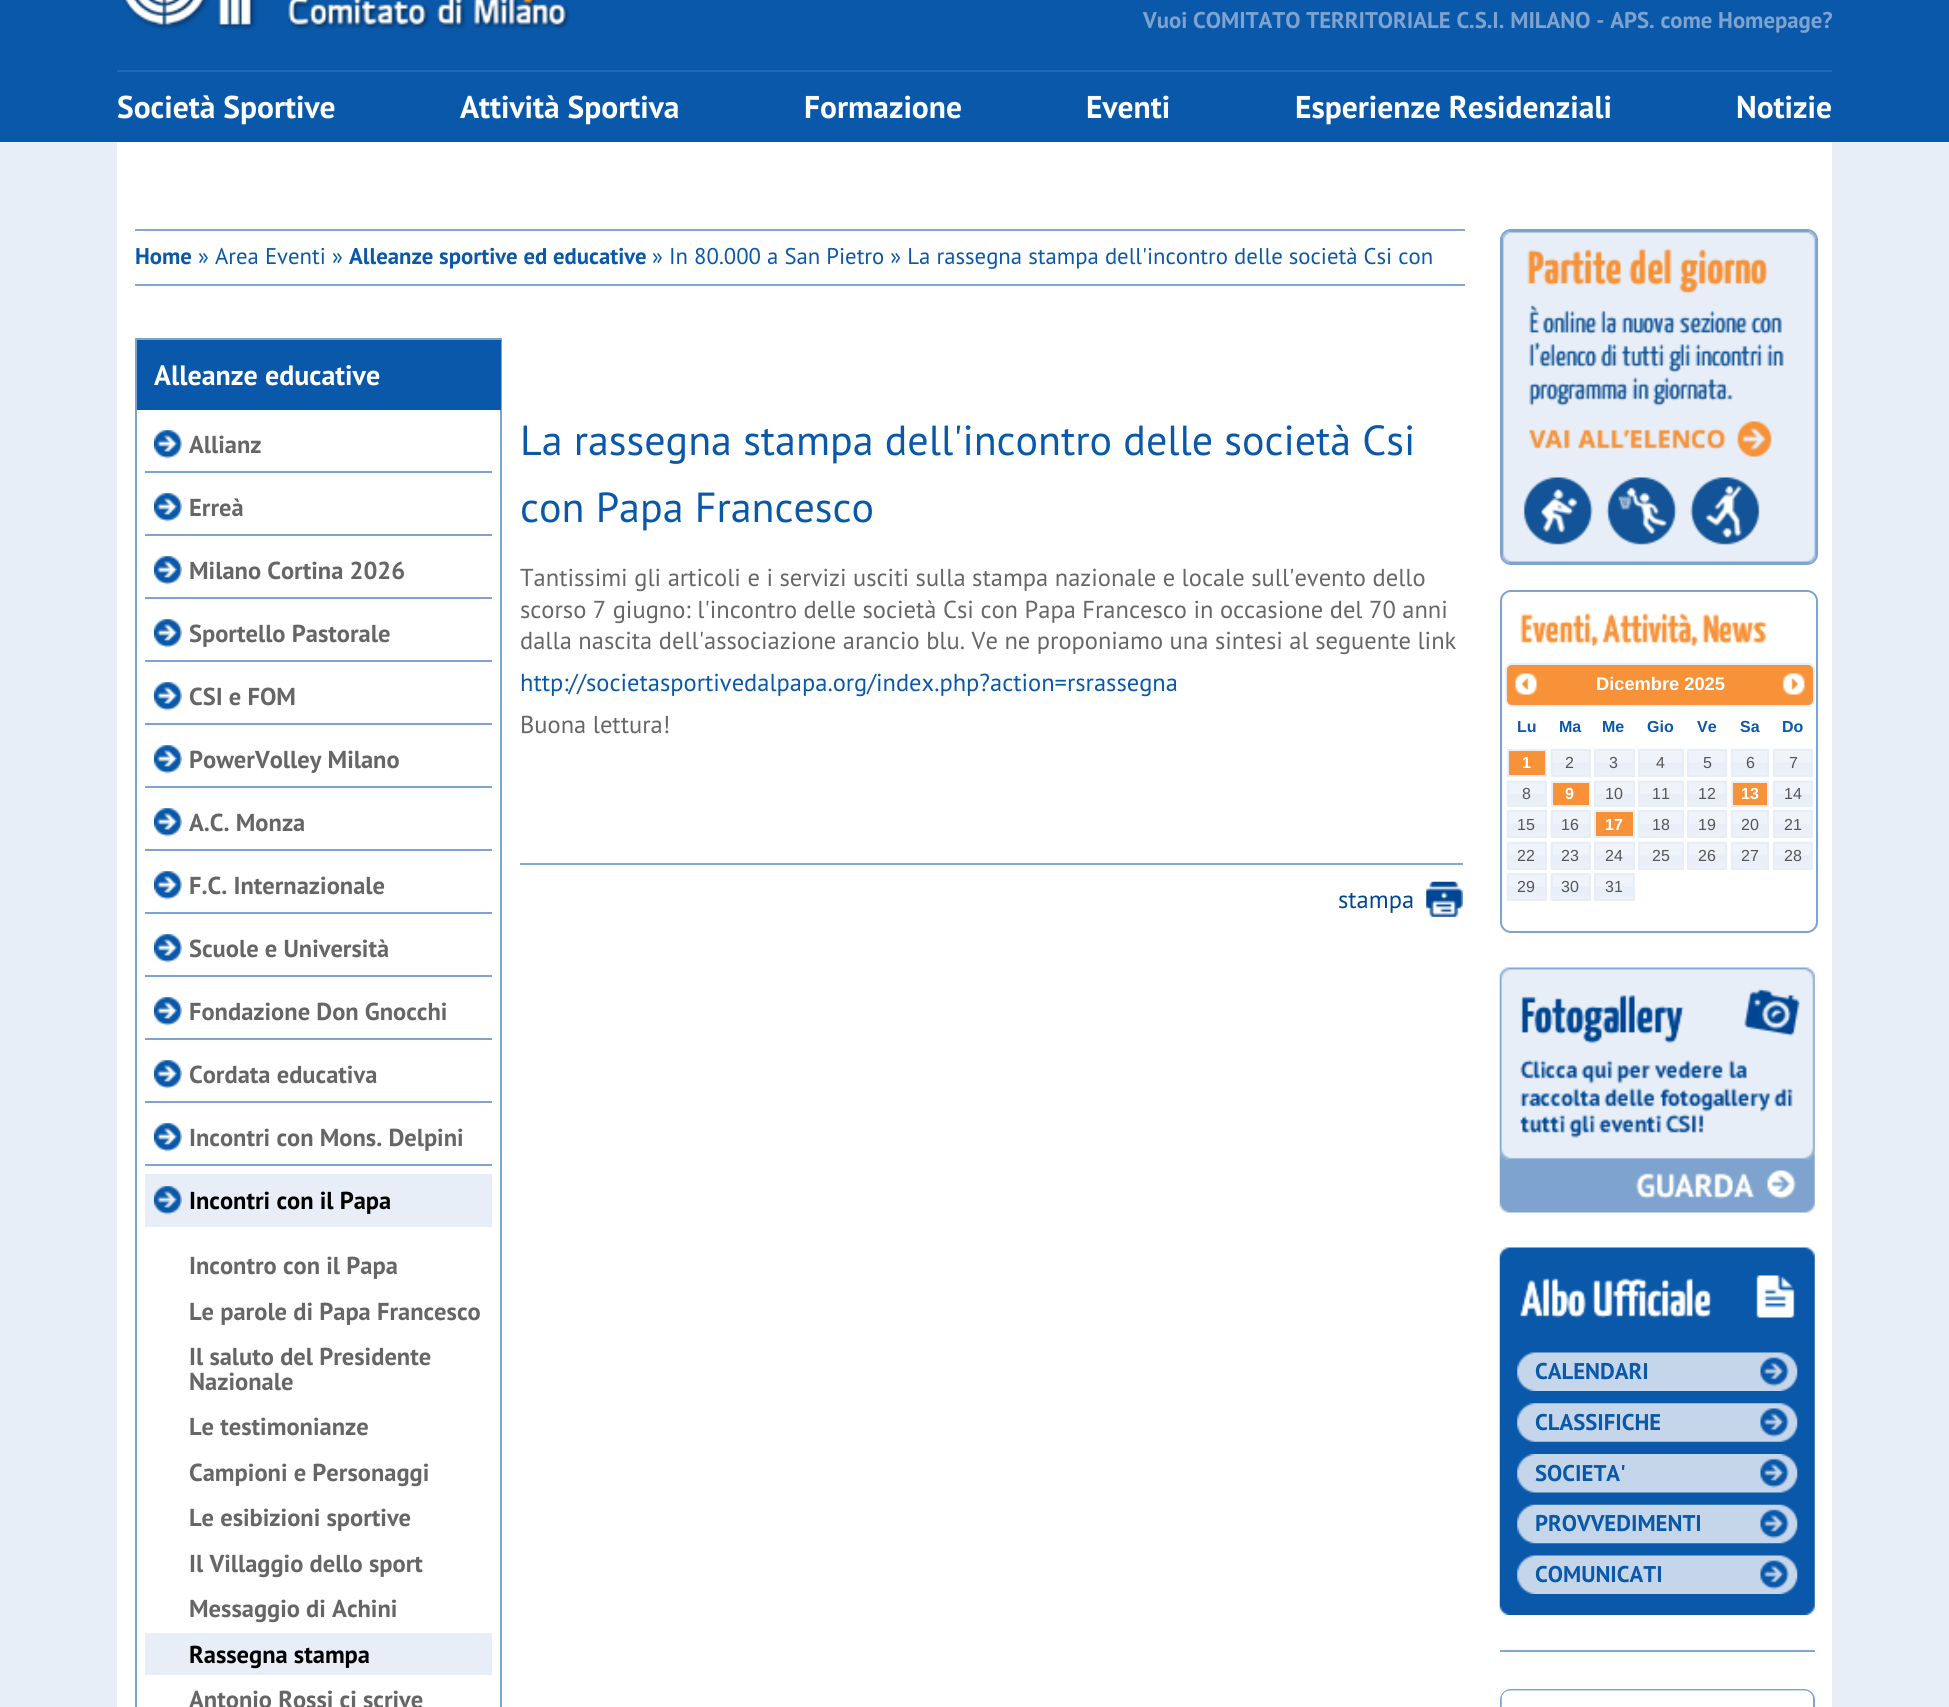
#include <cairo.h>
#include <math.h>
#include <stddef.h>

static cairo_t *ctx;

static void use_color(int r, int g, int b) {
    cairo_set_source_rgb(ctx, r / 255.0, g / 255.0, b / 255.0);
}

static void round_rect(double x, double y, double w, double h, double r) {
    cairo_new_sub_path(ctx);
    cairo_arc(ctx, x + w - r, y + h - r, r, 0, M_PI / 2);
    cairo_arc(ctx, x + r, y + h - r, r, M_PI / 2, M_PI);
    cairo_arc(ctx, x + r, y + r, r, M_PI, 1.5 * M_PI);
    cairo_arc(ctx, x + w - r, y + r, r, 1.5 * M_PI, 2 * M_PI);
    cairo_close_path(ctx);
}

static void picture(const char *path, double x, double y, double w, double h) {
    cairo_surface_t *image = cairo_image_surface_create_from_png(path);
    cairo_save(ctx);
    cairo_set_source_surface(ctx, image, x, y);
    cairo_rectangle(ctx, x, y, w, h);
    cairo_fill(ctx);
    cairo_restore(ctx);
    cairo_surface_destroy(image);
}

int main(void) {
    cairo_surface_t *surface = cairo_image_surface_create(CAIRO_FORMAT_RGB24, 1949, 1707);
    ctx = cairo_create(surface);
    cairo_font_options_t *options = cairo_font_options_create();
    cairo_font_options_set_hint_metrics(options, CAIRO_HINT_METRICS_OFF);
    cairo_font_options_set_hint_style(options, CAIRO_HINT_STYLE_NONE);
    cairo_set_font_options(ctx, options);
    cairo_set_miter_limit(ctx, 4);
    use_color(231, 238, 247);
    cairo_paint(ctx);
    use_color(10, 88, 170);
    cairo_rectangle(ctx, 0, 0, 1949, 142);
    cairo_fill(ctx);
    picture("img1.png", 122, 0, 448, 30);
    use_color(32, 104, 185);
    cairo_rectangle(ctx, 117, 70, 1715, 2);
    cairo_fill(ctx);
    cairo_select_font_face(ctx, "PT Sans", CAIRO_FONT_SLANT_NORMAL, CAIRO_FONT_WEIGHT_BOLD);
    cairo_set_font_size(ctx, 22.75);
    use_color(126, 163, 206);
    cairo_move_to(ctx, 1143, 28);
    cairo_show_text(ctx, "Vuoi COMITATO TERRITORIALE C.S.I. MILANO - APS. come Homepage?");
    cairo_set_font_size(ctx, 31.5);
    use_color(255, 255, 255);
    cairo_move_to(ctx, 117, 118);
    cairo_show_text(ctx, "Società Sportive");
    cairo_move_to(ctx, 460, 118);
    cairo_show_text(ctx, "Attività Sportiva");
    cairo_move_to(ctx, 804, 118);
    cairo_show_text(ctx, "Formazione");
    cairo_move_to(ctx, 1086, 118);
    cairo_show_text(ctx, "Eventi");
    cairo_move_to(ctx, 1295, 118);
    cairo_show_text(ctx, "Esperienze Residenziali");
    cairo_move_to(ctx, 1736, 118);
    cairo_show_text(ctx, "Notizie");
    cairo_rectangle(ctx, 117, 142, 1715, 1565);
    cairo_fill(ctx);
    use_color(132, 167, 209);
    cairo_rectangle(ctx, 135, 229, 1330, 2);
    cairo_fill(ctx);
    cairo_rectangle(ctx, 135, 284, 1330, 2);
    cairo_fill(ctx);
    cairo_set_font_size(ctx, 22.75);
    use_color(10, 88, 169);
    cairo_move_to(ctx, 135, 264);
    cairo_show_text(ctx, "Home");
    cairo_select_font_face(ctx, "PT Sans", CAIRO_FONT_SLANT_NORMAL, CAIRO_FONT_WEIGHT_NORMAL);
    cairo_move_to(ctx, 198, 264);
    cairo_show_text(ctx, "» Area Eventi »");
    cairo_select_font_face(ctx, "PT Sans", CAIRO_FONT_SLANT_NORMAL, CAIRO_FONT_WEIGHT_BOLD);
    cairo_move_to(ctx, 349, 264);
    cairo_show_text(ctx, "Alleanze sportive ed educative");
    cairo_select_font_face(ctx, "PT Sans", CAIRO_FONT_SLANT_NORMAL, CAIRO_FONT_WEIGHT_NORMAL);
    cairo_move_to(ctx, 652, 264);
    cairo_show_text(ctx, "» In 80.000 a San Pietro » La rassegna stampa dell'incontro delle società Csi con");
    cairo_rectangle(ctx, 136, 339, 365, 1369);
    use_color(126, 163, 207);
    cairo_stroke(ctx);
    use_color(10, 88, 169);
    cairo_rectangle(ctx, 137, 340, 364, 70);
    cairo_fill(ctx);
    cairo_select_font_face(ctx, "PT Sans", CAIRO_FONT_SLANT_NORMAL, CAIRO_FONT_WEIGHT_BOLD);
    cairo_set_font_size(ctx, 28);
    use_color(255, 255, 255);
    cairo_move_to(ctx, 154, 385);
    cairo_show_text(ctx, "Alleanze educative");
    picture("img2.png", 154, 430, 28, 29);
    use_color(126, 163, 207);
    cairo_rectangle(ctx, 145, 471, 347, 2);
    cairo_fill(ctx);
    cairo_set_font_size(ctx, 24.5);
    use_color(102, 102, 102);
    cairo_move_to(ctx, 189, 453);
    cairo_show_text(ctx, "Allianz");
    picture("img2.png", 154, 493, 28, 29);
    use_color(126, 163, 207);
    cairo_rectangle(ctx, 145, 534, 347, 2);
    cairo_fill(ctx);
    use_color(102, 102, 102);
    cairo_move_to(ctx, 189, 516);
    cairo_show_text(ctx, "Erreà");
    picture("img2.png", 154, 556, 28, 29);
    use_color(126, 163, 207);
    cairo_rectangle(ctx, 145, 597, 347, 2);
    cairo_fill(ctx);
    use_color(102, 102, 102);
    cairo_move_to(ctx, 189, 579);
    cairo_show_text(ctx, "Milano Cortina 2026");
    picture("img2.png", 154, 619, 28, 29);
    use_color(126, 163, 207);
    cairo_rectangle(ctx, 145, 660, 347, 2);
    cairo_fill(ctx);
    use_color(102, 102, 102);
    cairo_move_to(ctx, 189, 642);
    cairo_show_text(ctx, "Sportello Pastorale");
    picture("img2.png", 154, 682, 28, 29);
    use_color(126, 163, 207);
    cairo_rectangle(ctx, 145, 723, 347, 2);
    cairo_fill(ctx);
    use_color(102, 102, 102);
    cairo_move_to(ctx, 189, 705);
    cairo_show_text(ctx, "CSI e FOM");
    picture("img2.png", 154, 745, 28, 29);
    use_color(126, 163, 207);
    cairo_rectangle(ctx, 145, 786, 347, 2);
    cairo_fill(ctx);
    use_color(102, 102, 102);
    cairo_move_to(ctx, 189, 768);
    cairo_show_text(ctx, "PowerVolley Milano");
    picture("img2.png", 154, 808, 28, 29);
    use_color(126, 163, 207);
    cairo_rectangle(ctx, 145, 849, 347, 2);
    cairo_fill(ctx);
    use_color(102, 102, 102);
    cairo_move_to(ctx, 189, 831);
    cairo_show_text(ctx, "A.C. Monza");
    picture("img2.png", 154, 871, 28, 29);
    use_color(126, 163, 207);
    cairo_rectangle(ctx, 145, 912, 347, 2);
    cairo_fill(ctx);
    use_color(102, 102, 102);
    cairo_move_to(ctx, 189, 894);
    cairo_show_text(ctx, "F.C. Internazionale");
    picture("img2.png", 154, 934, 28, 29);
    use_color(126, 163, 207);
    cairo_rectangle(ctx, 145, 975, 347, 2);
    cairo_fill(ctx);
    use_color(102, 102, 102);
    cairo_move_to(ctx, 189, 957);
    cairo_show_text(ctx, "Scuole e Università");
    picture("img2.png", 154, 997, 28, 29);
    use_color(126, 163, 207);
    cairo_rectangle(ctx, 145, 1038, 347, 2);
    cairo_fill(ctx);
    use_color(102, 102, 102);
    cairo_move_to(ctx, 189, 1020);
    cairo_show_text(ctx, "Fondazione Don Gnocchi");
    picture("img2.png", 154, 1060, 28, 29);
    use_color(126, 163, 207);
    cairo_rectangle(ctx, 145, 1101, 347, 2);
    cairo_fill(ctx);
    use_color(102, 102, 102);
    cairo_move_to(ctx, 189, 1083);
    cairo_show_text(ctx, "Cordata educativa");
    picture("img2.png", 154, 1123, 28, 29);
    use_color(126, 163, 207);
    cairo_rectangle(ctx, 145, 1164, 347, 2);
    cairo_fill(ctx);
    use_color(102, 102, 102);
    cairo_move_to(ctx, 189, 1146);
    cairo_show_text(ctx, "Incontri con Mons. Delpini");
    use_color(231, 238, 247);
    cairo_rectangle(ctx, 145, 1174, 347, 53);
    cairo_fill(ctx);
    picture("img3.png", 154, 1186, 28, 29);
    use_color(0, 0, 0);
    cairo_move_to(ctx, 189, 1209);
    cairo_show_text(ctx, "Incontri con il Papa");
    use_color(102, 102, 102);
    cairo_move_to(ctx, 189, 1274);
    cairo_show_text(ctx, "Incontro con il Papa");
    cairo_move_to(ctx, 189, 1320);
    cairo_show_text(ctx, "Le parole di Papa Francesco");
    cairo_move_to(ctx, 189, 1365);
    cairo_show_text(ctx, "Il saluto del Presidente");
    cairo_move_to(ctx, 189, 1390);
    cairo_show_text(ctx, "Nazionale");
    cairo_move_to(ctx, 189, 1435);
    cairo_show_text(ctx, "Le testimonianze");
    cairo_move_to(ctx, 189, 1481);
    cairo_show_text(ctx, "Campioni e Personaggi");
    cairo_move_to(ctx, 189, 1526);
    cairo_show_text(ctx, "Le esibizioni sportive");
    cairo_move_to(ctx, 189, 1572);
    cairo_show_text(ctx, "Il Villaggio dello sport");
    cairo_move_to(ctx, 189, 1617);
    cairo_show_text(ctx, "Messaggio di Achini");
    use_color(231, 238, 247);
    cairo_rectangle(ctx, 145, 1633, 347, 42);
    cairo_fill(ctx);
    use_color(0, 0, 0);
    cairo_move_to(ctx, 189, 1663);
    cairo_show_text(ctx, "Rassegna stampa");
    use_color(102, 102, 102);
    cairo_move_to(ctx, 189, 1708);
    cairo_show_text(ctx, "Antonio Rossi ci scrive");
    cairo_select_font_face(ctx, "PT Sans", CAIRO_FONT_SLANT_NORMAL, CAIRO_FONT_WEIGHT_NORMAL);
    cairo_set_font_size(ctx, 42);
    use_color(10, 88, 169);
    cairo_move_to(ctx, 520, 455);
    cairo_show_text(ctx, "La rassegna stampa dell'incontro delle società Csi");
    cairo_move_to(ctx, 520, 522);
    cairo_show_text(ctx, "con Papa Francesco");
    cairo_set_font_size(ctx, 24.5);
    use_color(102, 102, 102);
    cairo_move_to(ctx, 520, 586);
    cairo_show_text(ctx, "Tantissimi gli articoli e i servizi usciti sulla stampa nazionale e locale sull'evento dello");
    cairo_move_to(ctx, 520, 618);
    cairo_show_text(ctx, "scorso 7 giugno: l'incontro delle società Csi con Papa Francesco in occasione del 70 anni");
    cairo_move_to(ctx, 520, 649);
    cairo_show_text(ctx, "dalla nascita dell'associazione arancio blu. Ve ne proponiamo una sintesi al seguente link");
    use_color(10, 88, 169);
    cairo_move_to(ctx, 520, 691);
    cairo_show_text(ctx, "http://societasportivedalpapa.org/index.php?action=rsrassegna");
    use_color(102, 102, 102);
    cairo_move_to(ctx, 520, 733);
    cairo_show_text(ctx, "Buona lettura!");
    use_color(132, 167, 209);
    cairo_rectangle(ctx, 520, 863, 943, 2);
    cairo_fill(ctx);
    picture("img4.png", 1426, 881, 37, 36);
    use_color(0, 70, 146);
    cairo_move_to(ctx, 1338, 908);
    cairo_show_text(ctx, "stampa");
    round_rect(1501, 230, 316, 334, 10);
    use_color(126, 163, 207);
    cairo_stroke(ctx);
    picture("img5.png", 1502, 231, 314, 332);
    round_rect(1501, 591, 316, 341, 10);
    cairo_stroke(ctx);
    picture("img6.png", 1520, 613, 247, 34);
    use_color(247, 146, 57);
    round_rect(1506, 664, 308, 42, 6);
    cairo_fill_preserve(ctx);
    use_color(231, 238, 247);
    cairo_stroke(ctx);
    picture("img7.png", 1515, 673, 22, 22);
    cairo_select_font_face(ctx, "Liberation Sans", CAIRO_FONT_SLANT_NORMAL, CAIRO_FONT_WEIGHT_BOLD);
    cairo_set_font_size(ctx, 18.25);
    use_color(255, 255, 255);
    cairo_move_to(ctx, 1596, 690);
    cairo_show_text(ctx, "Dicembre 2025");
    picture("img8.png", 1782, 673, 23, 22);
    cairo_set_font_size(ctx, 16);
    use_color(10, 88, 169);
    cairo_move_to(ctx, 1517, 732);
    cairo_show_text(ctx, "Lu");
    cairo_move_to(ctx, 1559, 732);
    cairo_show_text(ctx, "Ma");
    cairo_move_to(ctx, 1602, 732);
    cairo_show_text(ctx, "Me");
    cairo_move_to(ctx, 1647, 732);
    cairo_show_text(ctx, "Gio");
    cairo_move_to(ctx, 1697, 732);
    cairo_show_text(ctx, "Ve");
    cairo_move_to(ctx, 1740, 732);
    cairo_show_text(ctx, "Sa");
    cairo_move_to(ctx, 1782, 732);
    cairo_show_text(ctx, "Do");
    use_color(247, 146, 57);
    cairo_rectangle(ctx, 1508, 750, 38, 26);
    cairo_fill_preserve(ctx);
    use_color(231, 238, 247);
    cairo_stroke(ctx);
    use_color(255, 255, 255);
    cairo_move_to(ctx, 1522, 768);
    cairo_show_text(ctx, "1");
    picture("img9.png", 1550, 748, 41, 29);
    cairo_rectangle(ctx, 1552, 750, 38, 26);
    use_color(231, 238, 247);
    cairo_stroke(ctx);
    cairo_select_font_face(ctx, "Liberation Sans", CAIRO_FONT_SLANT_NORMAL, CAIRO_FONT_WEIGHT_NORMAL);
    use_color(85, 85, 85);
    cairo_move_to(ctx, 1565, 768);
    cairo_show_text(ctx, "2");
    picture("img10.png", 1594, 748, 41, 27);
    cairo_rectangle(ctx, 1595, 750, 39, 26);
    use_color(231, 238, 247);
    cairo_stroke(ctx);
    use_color(85, 85, 85);
    cairo_move_to(ctx, 1609, 768);
    cairo_show_text(ctx, "3");
    picture("img11.png", 1638, 748, 46, 27);
    cairo_rectangle(ctx, 1639, 750, 44, 26);
    use_color(231, 238, 247);
    cairo_stroke(ctx);
    use_color(85, 85, 85);
    cairo_move_to(ctx, 1656, 768);
    cairo_show_text(ctx, "4");
    picture("img12.png", 1687, 748, 41, 28);
    cairo_rectangle(ctx, 1688, 750, 38, 26);
    use_color(231, 238, 247);
    cairo_stroke(ctx);
    use_color(85, 85, 85);
    cairo_move_to(ctx, 1703, 768);
    cairo_show_text(ctx, "5");
    picture("img13.png", 1730, 748, 40, 28);
    cairo_rectangle(ctx, 1732, 750, 36, 26);
    use_color(231, 238, 247);
    cairo_stroke(ctx);
    use_color(85, 85, 85);
    cairo_move_to(ctx, 1746, 768);
    cairo_show_text(ctx, "6");
    picture("img14.png", 1772, 748, 41, 28);
    cairo_rectangle(ctx, 1774, 750, 38, 26);
    use_color(231, 238, 247);
    cairo_stroke(ctx);
    use_color(85, 85, 85);
    cairo_move_to(ctx, 1789, 768);
    cairo_show_text(ctx, "7");
    picture("img15.png", 1506, 780, 41, 26);
    cairo_rectangle(ctx, 1508, 782, 38, 24);
    use_color(231, 238, 247);
    cairo_stroke(ctx);
    use_color(85, 85, 85);
    cairo_move_to(ctx, 1522, 799);
    cairo_show_text(ctx, "8");
    use_color(247, 146, 57);
    cairo_rectangle(ctx, 1552, 782, 38, 24);
    cairo_fill_preserve(ctx);
    use_color(231, 238, 247);
    cairo_stroke(ctx);
    cairo_select_font_face(ctx, "Liberation Sans", CAIRO_FONT_SLANT_NORMAL, CAIRO_FONT_WEIGHT_BOLD);
    use_color(255, 255, 255);
    cairo_move_to(ctx, 1565, 799);
    cairo_show_text(ctx, "9");
    picture("img16.png", 1594, 780, 41, 25);
    cairo_rectangle(ctx, 1595, 782, 39, 24);
    use_color(231, 238, 247);
    cairo_stroke(ctx);
    cairo_select_font_face(ctx, "Liberation Sans", CAIRO_FONT_SLANT_NORMAL, CAIRO_FONT_WEIGHT_NORMAL);
    use_color(85, 85, 85);
    cairo_move_to(ctx, 1605, 799);
    cairo_show_text(ctx, "10");
    picture("img17.png", 1638, 780, 46, 25);
    cairo_rectangle(ctx, 1639, 782, 44, 24);
    use_color(231, 238, 247);
    cairo_stroke(ctx);
    use_color(85, 85, 85);
    cairo_move_to(ctx, 1652, 799);
    cairo_show_text(ctx, "11");
    picture("img18.png", 1687, 780, 41, 26);
    cairo_rectangle(ctx, 1688, 782, 38, 24);
    use_color(231, 238, 247);
    cairo_stroke(ctx);
    use_color(85, 85, 85);
    cairo_move_to(ctx, 1698, 799);
    cairo_show_text(ctx, "12");
    use_color(247, 146, 57);
    cairo_rectangle(ctx, 1732, 782, 36, 24);
    cairo_fill_preserve(ctx);
    use_color(231, 238, 247);
    cairo_stroke(ctx);
    cairo_select_font_face(ctx, "Liberation Sans", CAIRO_FONT_SLANT_NORMAL, CAIRO_FONT_WEIGHT_BOLD);
    use_color(255, 255, 255);
    cairo_move_to(ctx, 1741, 799);
    cairo_show_text(ctx, "13");
    picture("img15.png", 1772, 780, 41, 26);
    cairo_rectangle(ctx, 1774, 782, 38, 24);
    use_color(231, 238, 247);
    cairo_stroke(ctx);
    cairo_select_font_face(ctx, "Liberation Sans", CAIRO_FONT_SLANT_NORMAL, CAIRO_FONT_WEIGHT_NORMAL);
    use_color(85, 85, 85);
    cairo_move_to(ctx, 1784, 799);
    cairo_show_text(ctx, "14");
    picture("img19.png", 1506, 810, 39, 28);
    cairo_rectangle(ctx, 1508, 811, 38, 26);
    use_color(231, 238, 247);
    cairo_stroke(ctx);
    use_color(85, 85, 85);
    cairo_move_to(ctx, 1517, 830);
    cairo_show_text(ctx, "15");
    picture("img20.png", 1550, 810, 39, 28);
    cairo_rectangle(ctx, 1552, 811, 38, 26);
    use_color(231, 238, 247);
    cairo_stroke(ctx);
    use_color(85, 85, 85);
    cairo_move_to(ctx, 1561, 830);
    cairo_show_text(ctx, "16");
    use_color(247, 146, 57);
    cairo_rectangle(ctx, 1595, 811, 39, 26);
    cairo_fill_preserve(ctx);
    use_color(231, 238, 247);
    cairo_stroke(ctx);
    cairo_select_font_face(ctx, "Liberation Sans", CAIRO_FONT_SLANT_NORMAL, CAIRO_FONT_WEIGHT_BOLD);
    use_color(255, 255, 255);
    cairo_move_to(ctx, 1605, 830);
    cairo_show_text(ctx, "17");
    picture("img21.png", 1640, 812, 42, 24);
    cairo_rectangle(ctx, 1639, 811, 44, 26);
    use_color(231, 238, 247);
    cairo_stroke(ctx);
    cairo_select_font_face(ctx, "Liberation Sans", CAIRO_FONT_SLANT_NORMAL, CAIRO_FONT_WEIGHT_NORMAL);
    use_color(85, 85, 85);
    cairo_move_to(ctx, 1652, 830);
    cairo_show_text(ctx, "18");
    picture("img22.png", 1689, 810, 39, 28);
    cairo_rectangle(ctx, 1688, 811, 38, 26);
    use_color(231, 238, 247);
    cairo_stroke(ctx);
    use_color(85, 85, 85);
    cairo_move_to(ctx, 1698, 830);
    cairo_show_text(ctx, "19");
    picture("img23.png", 1730, 810, 40, 28);
    cairo_rectangle(ctx, 1732, 811, 36, 26);
    use_color(231, 238, 247);
    cairo_stroke(ctx);
    use_color(85, 85, 85);
    cairo_move_to(ctx, 1741, 830);
    cairo_show_text(ctx, "20");
    picture("img19.png", 1772, 810, 39, 28);
    cairo_rectangle(ctx, 1774, 811, 38, 26);
    use_color(231, 238, 247);
    cairo_stroke(ctx);
    use_color(85, 85, 85);
    cairo_move_to(ctx, 1784, 830);
    cairo_show_text(ctx, "21");
    picture("img24.png", 1506, 841, 41, 28);
    cairo_rectangle(ctx, 1508, 843, 38, 26);
    use_color(231, 238, 247);
    cairo_stroke(ctx);
    use_color(85, 85, 85);
    cairo_move_to(ctx, 1517, 861);
    cairo_show_text(ctx, "22");
    picture("img25.png", 1550, 841, 41, 29);
    cairo_rectangle(ctx, 1552, 843, 38, 26);
    use_color(231, 238, 247);
    cairo_stroke(ctx);
    use_color(85, 85, 85);
    cairo_move_to(ctx, 1561, 861);
    cairo_show_text(ctx, "23");
    picture("img26.png", 1594, 841, 41, 27);
    cairo_rectangle(ctx, 1595, 843, 39, 26);
    use_color(231, 238, 247);
    cairo_stroke(ctx);
    use_color(85, 85, 85);
    cairo_move_to(ctx, 1605, 861);
    cairo_show_text(ctx, "24");
    picture("img27.png", 1638, 841, 46, 27);
    cairo_rectangle(ctx, 1639, 843, 44, 26);
    use_color(231, 238, 247);
    cairo_stroke(ctx);
    use_color(85, 85, 85);
    cairo_move_to(ctx, 1652, 861);
    cairo_show_text(ctx, "25");
    picture("img28.png", 1687, 841, 41, 28);
    cairo_rectangle(ctx, 1688, 843, 38, 26);
    use_color(231, 238, 247);
    cairo_stroke(ctx);
    use_color(85, 85, 85);
    cairo_move_to(ctx, 1698, 861);
    cairo_show_text(ctx, "26");
    picture("img29.png", 1730, 841, 40, 28);
    cairo_rectangle(ctx, 1732, 843, 36, 26);
    use_color(231, 238, 247);
    cairo_stroke(ctx);
    use_color(85, 85, 85);
    cairo_move_to(ctx, 1741, 861);
    cairo_show_text(ctx, "27");
    picture("img24.png", 1772, 841, 41, 28);
    cairo_rectangle(ctx, 1774, 843, 38, 26);
    use_color(231, 238, 247);
    cairo_stroke(ctx);
    use_color(85, 85, 85);
    cairo_move_to(ctx, 1784, 861);
    cairo_show_text(ctx, "28");
    picture("img19.png", 1506, 873, 39, 28);
    cairo_rectangle(ctx, 1508, 874, 38, 26);
    use_color(231, 238, 247);
    cairo_stroke(ctx);
    use_color(85, 85, 85);
    cairo_move_to(ctx, 1517, 892);
    cairo_show_text(ctx, "29");
    picture("img20.png", 1550, 873, 39, 28);
    cairo_rectangle(ctx, 1552, 874, 38, 26);
    use_color(231, 238, 247);
    cairo_stroke(ctx);
    use_color(85, 85, 85);
    cairo_move_to(ctx, 1561, 892);
    cairo_show_text(ctx, "30");
    picture("img30.png", 1596, 875, 37, 24);
    cairo_rectangle(ctx, 1595, 874, 39, 26);
    use_color(231, 238, 247);
    cairo_stroke(ctx);
    use_color(85, 85, 85);
    cairo_move_to(ctx, 1605, 892);
    cairo_show_text(ctx, "31");
    picture("img31.png", 1499, 967, 316, 246);
    picture("img32.png", 1499, 1247, 316, 368);
    picture("img33.png", 1517, 1352, 281, 39);
    cairo_select_font_face(ctx, "PT Sans", CAIRO_FONT_SLANT_NORMAL, CAIRO_FONT_WEIGHT_BOLD);
    cairo_set_font_size(ctx, 22.75);
    use_color(10, 88, 169);
    cairo_move_to(ctx, 1535, 1379);
    cairo_show_text(ctx, "CALENDARI");
    picture("img34.png", 1517, 1403, 281, 39);
    cairo_move_to(ctx, 1535, 1430);
    cairo_show_text(ctx, "CLASSIFICHE");
    picture("img35.png", 1517, 1454, 281, 39);
    cairo_move_to(ctx, 1535, 1481);
    cairo_show_text(ctx, "SOCIETA'");
    picture("img36.png", 1517, 1504, 281, 40);
    cairo_move_to(ctx, 1535, 1531);
    cairo_show_text(ctx, "PROVVEDIMENTI");
    picture("img33.png", 1517, 1555, 281, 39);
    cairo_move_to(ctx, 1535, 1582);
    cairo_show_text(ctx, "COMUNICATI");
    use_color(132, 167, 209);
    cairo_rectangle(ctx, 1500, 1650, 315, 2);
    cairo_fill(ctx);
    round_rect(1501, 1690, 313, 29, 10);
    use_color(126, 163, 207);
    cairo_stroke(ctx);
    picture("img37.png", 1501, 1690, 312, 17);
    cairo_surface_write_to_png(surface, "result.png");
    cairo_font_options_destroy(options);
    cairo_destroy(ctx);
    cairo_surface_destroy(surface);
    return 0;
}
